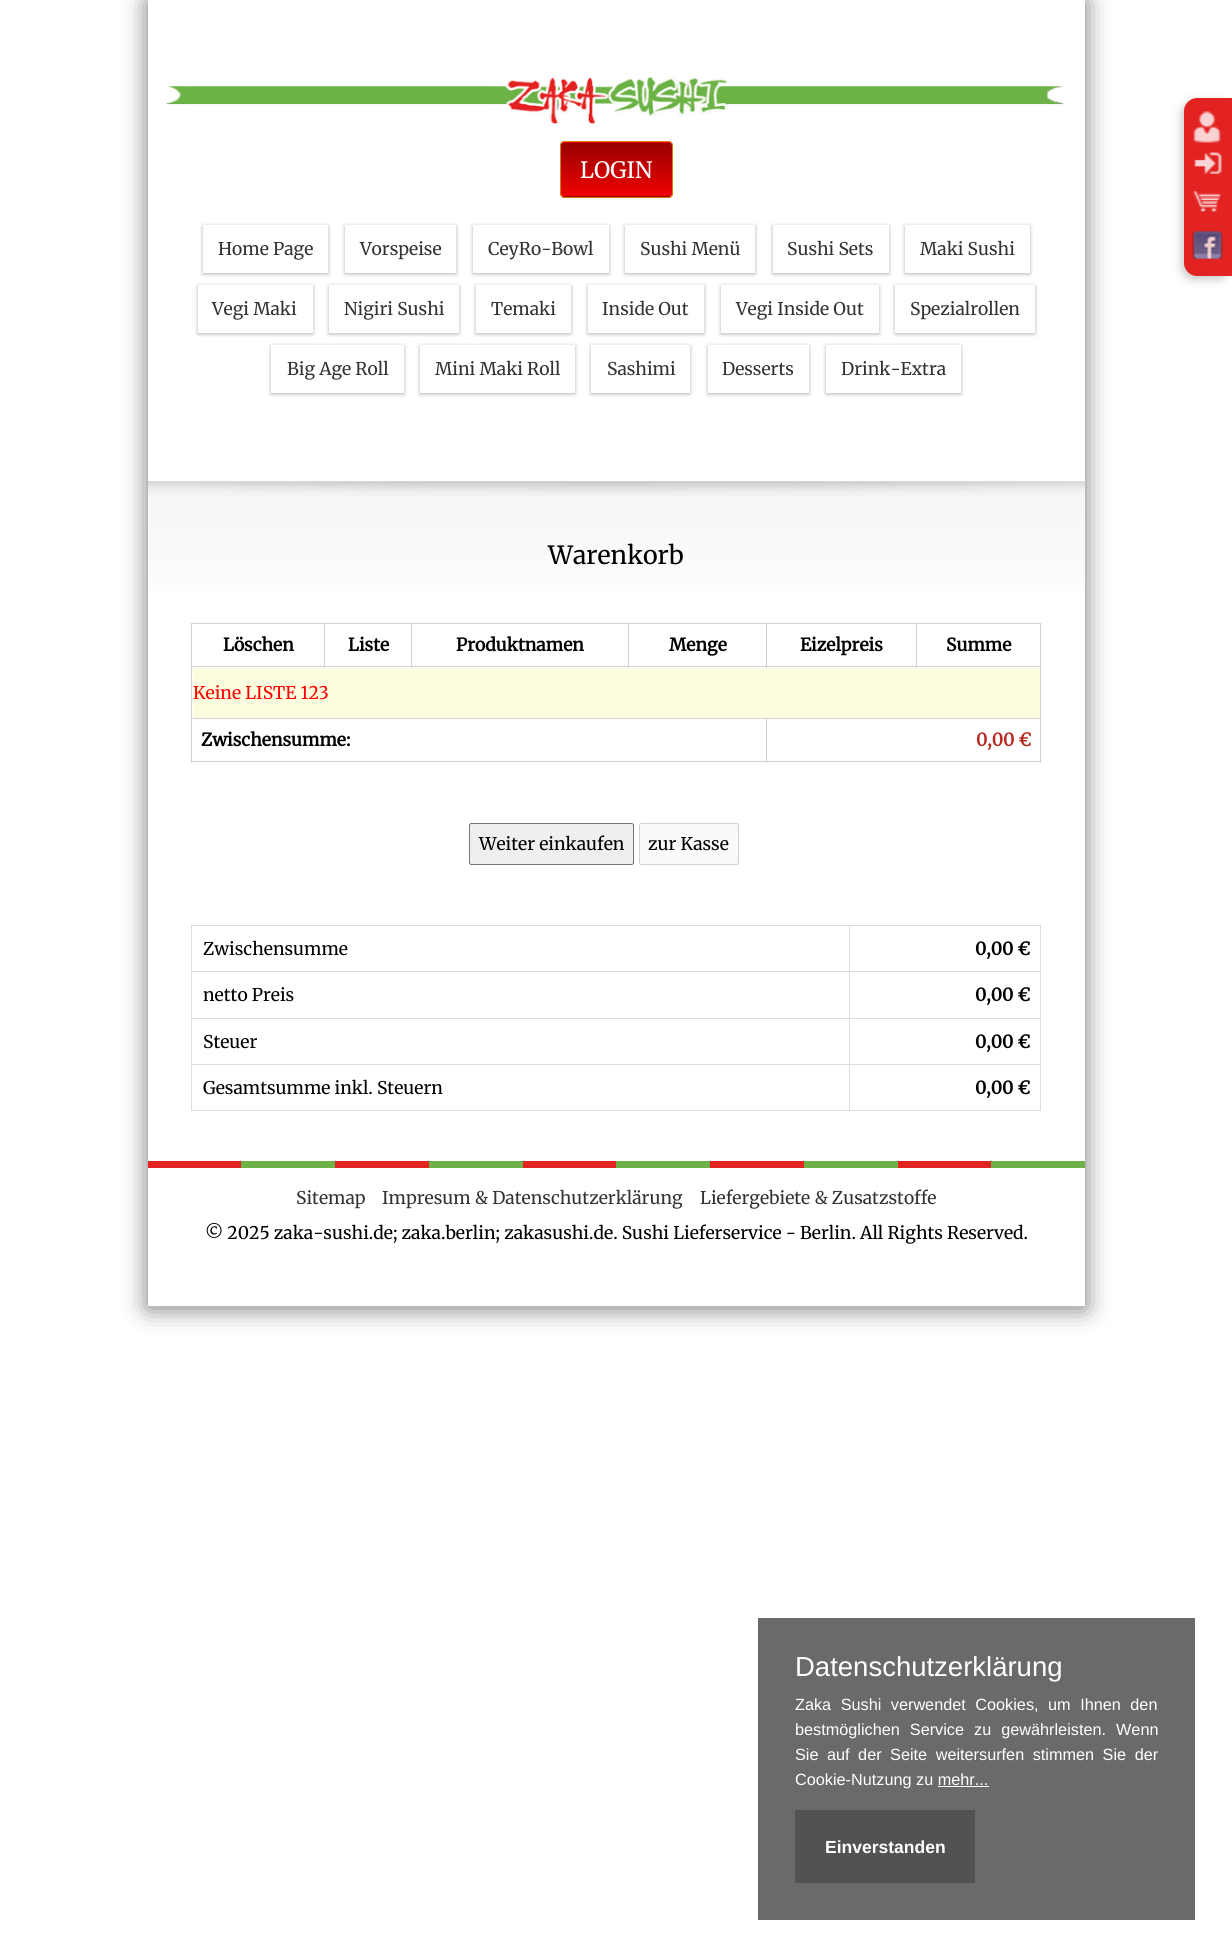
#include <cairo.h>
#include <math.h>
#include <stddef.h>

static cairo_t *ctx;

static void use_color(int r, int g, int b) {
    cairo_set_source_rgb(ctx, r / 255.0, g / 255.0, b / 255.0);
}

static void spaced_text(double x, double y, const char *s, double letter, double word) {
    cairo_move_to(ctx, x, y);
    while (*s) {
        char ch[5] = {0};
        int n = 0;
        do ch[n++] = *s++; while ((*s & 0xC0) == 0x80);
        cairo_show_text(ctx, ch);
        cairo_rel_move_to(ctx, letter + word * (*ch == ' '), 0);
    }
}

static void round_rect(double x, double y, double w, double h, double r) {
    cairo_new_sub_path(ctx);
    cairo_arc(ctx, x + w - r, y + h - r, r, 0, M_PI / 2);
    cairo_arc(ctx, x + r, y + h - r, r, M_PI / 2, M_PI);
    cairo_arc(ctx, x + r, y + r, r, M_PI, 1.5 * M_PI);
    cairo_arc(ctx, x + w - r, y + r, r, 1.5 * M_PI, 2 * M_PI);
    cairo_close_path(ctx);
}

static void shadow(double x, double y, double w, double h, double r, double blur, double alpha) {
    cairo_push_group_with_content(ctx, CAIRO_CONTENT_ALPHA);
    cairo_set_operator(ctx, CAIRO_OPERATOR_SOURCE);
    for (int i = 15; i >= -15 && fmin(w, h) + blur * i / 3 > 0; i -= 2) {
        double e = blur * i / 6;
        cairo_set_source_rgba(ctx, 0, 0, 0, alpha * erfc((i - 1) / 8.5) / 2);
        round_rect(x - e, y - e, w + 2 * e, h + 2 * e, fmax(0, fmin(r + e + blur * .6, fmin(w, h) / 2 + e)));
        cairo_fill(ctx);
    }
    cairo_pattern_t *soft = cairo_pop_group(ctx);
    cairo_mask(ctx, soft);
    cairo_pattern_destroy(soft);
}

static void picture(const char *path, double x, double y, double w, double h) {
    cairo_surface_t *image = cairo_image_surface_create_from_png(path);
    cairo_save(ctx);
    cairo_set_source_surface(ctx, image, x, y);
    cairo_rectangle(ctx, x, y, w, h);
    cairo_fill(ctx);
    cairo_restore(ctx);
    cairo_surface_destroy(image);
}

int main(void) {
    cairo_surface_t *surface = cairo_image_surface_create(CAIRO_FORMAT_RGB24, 1232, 1957);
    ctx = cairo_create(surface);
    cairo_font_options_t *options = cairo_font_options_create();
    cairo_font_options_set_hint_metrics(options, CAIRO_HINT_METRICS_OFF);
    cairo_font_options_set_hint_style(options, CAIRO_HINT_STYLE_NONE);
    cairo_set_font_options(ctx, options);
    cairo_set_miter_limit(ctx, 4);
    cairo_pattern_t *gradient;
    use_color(255, 255, 255);
    cairo_paint(ctx);
    cairo_save(ctx);
    cairo_set_fill_rule(ctx, CAIRO_FILL_RULE_EVEN_ODD);
    cairo_new_path(ctx);
    cairo_move_to(ctx, 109, 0);
    cairo_line_to(ctx, 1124, 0);
    cairo_line_to(ctx, 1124, 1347);
    cairo_line_to(ctx, 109, 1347);
    cairo_close_path(ctx);
    cairo_move_to(ctx, 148, 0);
    cairo_line_to(ctx, 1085, 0);
    cairo_line_to(ctx, 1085, 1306);
    cairo_line_to(ctx, 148, 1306);
    cairo_close_path(ctx);
    cairo_clip(ctx);
    use_color(117, 117, 117);
    shadow(148, 1, 937, 1307, 0, 12.5, 1);
    cairo_restore(ctx);
    picture("img1.png", 166, 75, 899, 51);
    cairo_save(ctx);
    round_rect(560, 141, 113, 57, 5);
    cairo_clip(ctx);
    gradient = cairo_pattern_create_linear(616, 143, 616, 196);
    cairo_pattern_add_color_stop_rgba(gradient, 0, 0.596, 0, 0, 1);
    cairo_pattern_add_color_stop_rgba(gradient, 1, 0.941, 0, 0, 1);
    cairo_set_source(ctx, gradient);
    cairo_pattern_destroy(gradient);
    cairo_rectangle(ctx, 560, 143, 113, 53);
    cairo_fill(ctx);
    gradient = cairo_pattern_create_linear(616, 89, 616, 143);
    cairo_pattern_add_color_stop_rgba(gradient, 0, 0.596, 0, 0, 1);
    cairo_pattern_add_color_stop_rgba(gradient, 1, 0.941, 0, 0, 1);
    cairo_set_source(ctx, gradient);
    cairo_pattern_destroy(gradient);
    cairo_rectangle(ctx, 560, 141, 113, 2);
    cairo_fill(ctx);
    gradient = cairo_pattern_create_linear(616, 196, 616, 250);
    cairo_pattern_add_color_stop_rgba(gradient, 0, 0.596, 0, 0, 1);
    cairo_pattern_add_color_stop_rgba(gradient, 1, 0.941, 0, 0, 1);
    cairo_set_source(ctx, gradient);
    cairo_pattern_destroy(gradient);
    cairo_rectangle(ctx, 560, 196, 113, 2);
    cairo_fill(ctx);
    cairo_restore(ctx);
    round_rect(560.5, 141.5, 112, 56, 4.5);
    use_color(218, 124, 12);
    cairo_set_line_width(ctx, 1);
    cairo_stroke(ctx);
    cairo_select_font_face(ctx, "Merriweather Light", CAIRO_FONT_SLANT_NORMAL, CAIRO_FONT_WEIGHT_NORMAL);
    cairo_set_font_size(ctx, 22.5);
    use_color(255, 255, 255);
    cairo_move_to(ctx, 580, 178);
    cairo_show_text(ctx, "LOGIN");
    cairo_save(ctx);
    cairo_set_fill_rule(ctx, CAIRO_FILL_RULE_EVEN_ODD);
    cairo_new_path(ctx);
    cairo_move_to(ctx, 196, 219);
    cairo_line_to(ctx, 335, 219);
    cairo_line_to(ctx, 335, 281);
    cairo_line_to(ctx, 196, 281);
    cairo_close_path(ctx);
    cairo_move_to(ctx, 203, 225);
    cairo_line_to(ctx, 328, 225);
    cairo_line_to(ctx, 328, 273);
    cairo_line_to(ctx, 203, 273);
    cairo_close_path(ctx);
    cairo_clip(ctx);
    use_color(0, 0, 0);
    shadow(203, 226, 125, 48, 0, 2, 0.3);
    cairo_restore(ctx);
    cairo_set_font_size(ctx, 17.5);
    use_color(51, 51, 51);
    cairo_move_to(ctx, 218, 255);
    cairo_show_text(ctx, "Home Page");
    cairo_save(ctx);
    cairo_set_fill_rule(ctx, CAIRO_FILL_RULE_EVEN_ODD);
    cairo_new_path(ctx);
    cairo_move_to(ctx, 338, 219);
    cairo_line_to(ctx, 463, 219);
    cairo_line_to(ctx, 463, 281);
    cairo_line_to(ctx, 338, 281);
    cairo_close_path(ctx);
    cairo_move_to(ctx, 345, 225);
    cairo_line_to(ctx, 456, 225);
    cairo_line_to(ctx, 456, 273);
    cairo_line_to(ctx, 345, 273);
    cairo_close_path(ctx);
    cairo_clip(ctx);
    use_color(0, 0, 0);
    shadow(345, 226, 111, 48, 0, 2, 0.3);
    cairo_restore(ctx);
    cairo_move_to(ctx, 360, 255);
    cairo_show_text(ctx, "Vorspeise");
    cairo_save(ctx);
    cairo_set_fill_rule(ctx, CAIRO_FILL_RULE_EVEN_ODD);
    cairo_new_path(ctx);
    cairo_move_to(ctx, 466, 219);
    cairo_line_to(ctx, 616, 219);
    cairo_line_to(ctx, 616, 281);
    cairo_line_to(ctx, 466, 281);
    cairo_close_path(ctx);
    cairo_move_to(ctx, 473, 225);
    cairo_line_to(ctx, 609, 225);
    cairo_line_to(ctx, 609, 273);
    cairo_line_to(ctx, 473, 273);
    cairo_close_path(ctx);
    cairo_clip(ctx);
    use_color(0, 0, 0);
    shadow(473, 226, 136, 48, 0, 2, 0.3);
    cairo_restore(ctx);
    cairo_move_to(ctx, 488, 255);
    cairo_show_text(ctx, "CeyRo-Bowl");
    cairo_save(ctx);
    cairo_set_fill_rule(ctx, CAIRO_FILL_RULE_EVEN_ODD);
    cairo_new_path(ctx);
    cairo_move_to(ctx, 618, 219);
    cairo_line_to(ctx, 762, 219);
    cairo_line_to(ctx, 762, 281);
    cairo_line_to(ctx, 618, 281);
    cairo_close_path(ctx);
    cairo_move_to(ctx, 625, 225);
    cairo_line_to(ctx, 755, 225);
    cairo_line_to(ctx, 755, 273);
    cairo_line_to(ctx, 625, 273);
    cairo_close_path(ctx);
    cairo_clip(ctx);
    use_color(0, 0, 0);
    shadow(625, 226, 130, 48, 0, 2, 0.3);
    cairo_restore(ctx);
    cairo_move_to(ctx, 640, 255);
    cairo_show_text(ctx, "Sushi Menü");
    cairo_save(ctx);
    cairo_set_fill_rule(ctx, CAIRO_FILL_RULE_EVEN_ODD);
    cairo_new_path(ctx);
    cairo_move_to(ctx, 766, 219);
    cairo_line_to(ctx, 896, 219);
    cairo_line_to(ctx, 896, 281);
    cairo_line_to(ctx, 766, 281);
    cairo_close_path(ctx);
    cairo_move_to(ctx, 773, 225);
    cairo_line_to(ctx, 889, 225);
    cairo_line_to(ctx, 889, 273);
    cairo_line_to(ctx, 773, 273);
    cairo_close_path(ctx);
    cairo_clip(ctx);
    use_color(0, 0, 0);
    shadow(773, 226, 116, 48, 0, 2, 0.3);
    cairo_restore(ctx);
    cairo_move_to(ctx, 787, 255);
    cairo_show_text(ctx, "Sushi Sets");
    cairo_save(ctx);
    cairo_set_fill_rule(ctx, CAIRO_FILL_RULE_EVEN_ODD);
    cairo_new_path(ctx);
    cairo_move_to(ctx, 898, 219);
    cairo_line_to(ctx, 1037, 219);
    cairo_line_to(ctx, 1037, 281);
    cairo_line_to(ctx, 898, 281);
    cairo_close_path(ctx);
    cairo_move_to(ctx, 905, 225);
    cairo_line_to(ctx, 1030, 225);
    cairo_line_to(ctx, 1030, 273);
    cairo_line_to(ctx, 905, 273);
    cairo_close_path(ctx);
    cairo_clip(ctx);
    use_color(0, 0, 0);
    shadow(905, 226, 125, 48, 0, 2, 0.3);
    cairo_restore(ctx);
    cairo_move_to(ctx, 920, 255);
    cairo_show_text(ctx, "Maki Sushi");
    cairo_save(ctx);
    cairo_set_fill_rule(ctx, CAIRO_FILL_RULE_EVEN_ODD);
    cairo_new_path(ctx);
    cairo_move_to(ctx, 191, 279);
    cairo_line_to(ctx, 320, 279);
    cairo_line_to(ctx, 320, 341);
    cairo_line_to(ctx, 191, 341);
    cairo_close_path(ctx);
    cairo_move_to(ctx, 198, 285);
    cairo_line_to(ctx, 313, 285);
    cairo_line_to(ctx, 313, 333);
    cairo_line_to(ctx, 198, 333);
    cairo_close_path(ctx);
    cairo_clip(ctx);
    use_color(0, 0, 0);
    shadow(198, 286, 115, 48, 0, 2, 0.3);
    cairo_restore(ctx);
    cairo_move_to(ctx, 212, 315);
    cairo_show_text(ctx, "Vegi Maki");
    cairo_save(ctx);
    cairo_set_fill_rule(ctx, CAIRO_FILL_RULE_EVEN_ODD);
    cairo_new_path(ctx);
    cairo_move_to(ctx, 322, 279);
    cairo_line_to(ctx, 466, 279);
    cairo_line_to(ctx, 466, 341);
    cairo_line_to(ctx, 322, 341);
    cairo_close_path(ctx);
    cairo_move_to(ctx, 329, 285);
    cairo_line_to(ctx, 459, 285);
    cairo_line_to(ctx, 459, 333);
    cairo_line_to(ctx, 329, 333);
    cairo_close_path(ctx);
    cairo_clip(ctx);
    use_color(0, 0, 0);
    shadow(329, 286, 130, 48, 0, 2, 0.3);
    cairo_restore(ctx);
    cairo_move_to(ctx, 344, 315);
    cairo_show_text(ctx, "Nigiri Sushi");
    cairo_save(ctx);
    cairo_set_fill_rule(ctx, CAIRO_FILL_RULE_EVEN_ODD);
    cairo_new_path(ctx);
    cairo_move_to(ctx, 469, 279);
    cairo_line_to(ctx, 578, 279);
    cairo_line_to(ctx, 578, 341);
    cairo_line_to(ctx, 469, 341);
    cairo_close_path(ctx);
    cairo_move_to(ctx, 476, 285);
    cairo_line_to(ctx, 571, 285);
    cairo_line_to(ctx, 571, 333);
    cairo_line_to(ctx, 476, 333);
    cairo_close_path(ctx);
    cairo_clip(ctx);
    use_color(0, 0, 0);
    shadow(476, 286, 95, 48, 0, 2, 0.3);
    cairo_restore(ctx);
    cairo_move_to(ctx, 491, 315);
    cairo_show_text(ctx, "Temaki");
    cairo_save(ctx);
    cairo_set_fill_rule(ctx, CAIRO_FILL_RULE_EVEN_ODD);
    cairo_new_path(ctx);
    cairo_move_to(ctx, 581, 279);
    cairo_line_to(ctx, 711, 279);
    cairo_line_to(ctx, 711, 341);
    cairo_line_to(ctx, 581, 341);
    cairo_close_path(ctx);
    cairo_move_to(ctx, 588, 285);
    cairo_line_to(ctx, 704, 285);
    cairo_line_to(ctx, 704, 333);
    cairo_line_to(ctx, 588, 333);
    cairo_close_path(ctx);
    cairo_clip(ctx);
    use_color(0, 0, 0);
    shadow(588, 286, 116, 48, 0, 2, 0.3);
    cairo_restore(ctx);
    cairo_move_to(ctx, 602, 315);
    cairo_show_text(ctx, "Inside Out");
    cairo_save(ctx);
    cairo_set_fill_rule(ctx, CAIRO_FILL_RULE_EVEN_ODD);
    cairo_new_path(ctx);
    cairo_move_to(ctx, 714, 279);
    cairo_line_to(ctx, 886, 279);
    cairo_line_to(ctx, 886, 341);
    cairo_line_to(ctx, 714, 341);
    cairo_close_path(ctx);
    cairo_move_to(ctx, 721, 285);
    cairo_line_to(ctx, 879, 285);
    cairo_line_to(ctx, 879, 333);
    cairo_line_to(ctx, 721, 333);
    cairo_close_path(ctx);
    cairo_clip(ctx);
    use_color(0, 0, 0);
    shadow(721, 286, 158, 48, 0, 2, 0.3);
    cairo_restore(ctx);
    cairo_move_to(ctx, 736, 315);
    cairo_show_text(ctx, "Vegi Inside Out");
    cairo_save(ctx);
    cairo_set_fill_rule(ctx, CAIRO_FILL_RULE_EVEN_ODD);
    cairo_new_path(ctx);
    cairo_move_to(ctx, 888, 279);
    cairo_line_to(ctx, 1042, 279);
    cairo_line_to(ctx, 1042, 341);
    cairo_line_to(ctx, 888, 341);
    cairo_close_path(ctx);
    cairo_move_to(ctx, 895, 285);
    cairo_line_to(ctx, 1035, 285);
    cairo_line_to(ctx, 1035, 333);
    cairo_line_to(ctx, 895, 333);
    cairo_close_path(ctx);
    cairo_clip(ctx);
    use_color(0, 0, 0);
    shadow(895, 286, 140, 48, 0, 2, 0.3);
    cairo_restore(ctx);
    cairo_move_to(ctx, 910, 315);
    cairo_show_text(ctx, "Spezialrollen");
    cairo_save(ctx);
    cairo_set_fill_rule(ctx, CAIRO_FILL_RULE_EVEN_ODD);
    cairo_new_path(ctx);
    cairo_move_to(ctx, 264, 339);
    cairo_line_to(ctx, 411, 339);
    cairo_line_to(ctx, 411, 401);
    cairo_line_to(ctx, 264, 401);
    cairo_close_path(ctx);
    cairo_move_to(ctx, 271, 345);
    cairo_line_to(ctx, 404, 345);
    cairo_line_to(ctx, 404, 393);
    cairo_line_to(ctx, 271, 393);
    cairo_close_path(ctx);
    cairo_clip(ctx);
    use_color(0, 0, 0);
    shadow(271, 346, 133, 48, 0, 2, 0.3);
    cairo_restore(ctx);
    cairo_move_to(ctx, 287, 375);
    cairo_show_text(ctx, "Big Age Roll");
    cairo_save(ctx);
    cairo_set_fill_rule(ctx, CAIRO_FILL_RULE_EVEN_ODD);
    cairo_new_path(ctx);
    cairo_move_to(ctx, 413, 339);
    cairo_line_to(ctx, 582, 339);
    cairo_line_to(ctx, 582, 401);
    cairo_line_to(ctx, 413, 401);
    cairo_close_path(ctx);
    cairo_move_to(ctx, 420, 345);
    cairo_line_to(ctx, 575, 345);
    cairo_line_to(ctx, 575, 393);
    cairo_line_to(ctx, 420, 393);
    cairo_close_path(ctx);
    cairo_clip(ctx);
    use_color(0, 0, 0);
    shadow(420, 346, 155, 48, 0, 2, 0.3);
    cairo_restore(ctx);
    cairo_move_to(ctx, 435, 375);
    cairo_show_text(ctx, "Mini Maki Roll");
    cairo_save(ctx);
    cairo_set_fill_rule(ctx, CAIRO_FILL_RULE_EVEN_ODD);
    cairo_new_path(ctx);
    cairo_move_to(ctx, 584, 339);
    cairo_line_to(ctx, 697, 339);
    cairo_line_to(ctx, 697, 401);
    cairo_line_to(ctx, 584, 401);
    cairo_close_path(ctx);
    cairo_move_to(ctx, 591, 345);
    cairo_line_to(ctx, 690, 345);
    cairo_line_to(ctx, 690, 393);
    cairo_line_to(ctx, 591, 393);
    cairo_close_path(ctx);
    cairo_clip(ctx);
    use_color(0, 0, 0);
    shadow(591, 346, 99, 48, 0, 2, 0.3);
    cairo_restore(ctx);
    cairo_move_to(ctx, 607, 375);
    cairo_show_text(ctx, "Sashimi");
    cairo_save(ctx);
    cairo_set_fill_rule(ctx, CAIRO_FILL_RULE_EVEN_ODD);
    cairo_new_path(ctx);
    cairo_move_to(ctx, 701, 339);
    cairo_line_to(ctx, 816, 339);
    cairo_line_to(ctx, 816, 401);
    cairo_line_to(ctx, 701, 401);
    cairo_close_path(ctx);
    cairo_move_to(ctx, 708, 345);
    cairo_line_to(ctx, 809, 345);
    cairo_line_to(ctx, 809, 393);
    cairo_line_to(ctx, 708, 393);
    cairo_close_path(ctx);
    cairo_clip(ctx);
    use_color(0, 0, 0);
    shadow(708, 346, 101, 48, 0, 2, 0.3);
    cairo_restore(ctx);
    cairo_move_to(ctx, 722, 375);
    cairo_show_text(ctx, "Desserts");
    cairo_save(ctx);
    cairo_set_fill_rule(ctx, CAIRO_FILL_RULE_EVEN_ODD);
    cairo_new_path(ctx);
    cairo_move_to(ctx, 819, 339);
    cairo_line_to(ctx, 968, 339);
    cairo_line_to(ctx, 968, 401);
    cairo_line_to(ctx, 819, 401);
    cairo_close_path(ctx);
    cairo_move_to(ctx, 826, 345);
    cairo_line_to(ctx, 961, 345);
    cairo_line_to(ctx, 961, 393);
    cairo_line_to(ctx, 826, 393);
    cairo_close_path(ctx);
    cairo_clip(ctx);
    use_color(0, 0, 0);
    shadow(826, 346, 135, 48, 0, 2, 0.3);
    cairo_restore(ctx);
    cairo_move_to(ctx, 841, 375);
    cairo_show_text(ctx, "Drink-Extra");
    gradient = cairo_pattern_create_linear(616, 481, 616, 629);
    cairo_pattern_add_color_stop_rgba(gradient, 0, 0.929, 0.929, 0.929, 1);
    cairo_pattern_add_color_stop_rgba(gradient, 0.08, 0.965, 0.965, 0.965, 1);
    cairo_pattern_add_color_stop_rgba(gradient, 1, 1, 1, 1, 1);
    cairo_set_source(ctx, gradient);
    cairo_pattern_destroy(gradient);
    cairo_rectangle(ctx, 148, 481, 937, 110);
    cairo_fill(ctx);
    picture("img2.png", 147, 481, 938, 15);
    cairo_set_font_size(ctx, 25);
    use_color(0, 0, 0);
    cairo_move_to(ctx, 548, 564);
    cairo_show_text(ctx, "Warenkorb");
    use_color(209, 209, 209);
    cairo_rectangle(ctx, 916, 623, 125, 1);
    cairo_fill(ctx);
    cairo_rectangle(ctx, 191, 666, 850, 1);
    cairo_fill(ctx);
    cairo_rectangle(ctx, 916, 623, 1, 45);
    cairo_fill(ctx);
    cairo_rectangle(ctx, 766, 623, 152, 1);
    cairo_fill(ctx);
    cairo_rectangle(ctx, 766, 623, 1, 45);
    cairo_fill(ctx);
    cairo_rectangle(ctx, 628, 623, 140, 1);
    cairo_fill(ctx);
    cairo_rectangle(ctx, 628, 623, 1, 45);
    cairo_fill(ctx);
    cairo_rectangle(ctx, 411, 623, 218, 1);
    cairo_fill(ctx);
    cairo_rectangle(ctx, 411, 623, 1, 45);
    cairo_fill(ctx);
    cairo_rectangle(ctx, 324, 623, 89, 1);
    cairo_fill(ctx);
    cairo_rectangle(ctx, 324, 623, 1, 45);
    cairo_fill(ctx);
    cairo_rectangle(ctx, 191, 623, 134, 1);
    cairo_fill(ctx);
    cairo_rectangle(ctx, 766, 718, 275, 1);
    cairo_fill(ctx);
    cairo_rectangle(ctx, 1040, 718, 1, 45);
    cairo_fill(ctx);
    cairo_rectangle(ctx, 766, 761, 275, 1);
    cairo_fill(ctx);
    cairo_rectangle(ctx, 766, 718, 1, 45);
    cairo_fill(ctx);
    cairo_rectangle(ctx, 191, 718, 577, 1);
    cairo_fill(ctx);
    cairo_rectangle(ctx, 191, 761, 577, 1);
    cairo_fill(ctx);
    cairo_rectangle(ctx, 191, 718, 1, 45);
    cairo_fill(ctx);
    cairo_rectangle(ctx, 191, 666, 1, 53);
    cairo_fill(ctx);
    cairo_rectangle(ctx, 191, 623, 1, 45);
    cairo_fill(ctx);
    cairo_select_font_face(ctx, "Merriweather", CAIRO_FONT_SLANT_NORMAL, CAIRO_FONT_WEIGHT_BOLD);
    cairo_set_font_size(ctx, 17.5);
    use_color(0, 0, 0);
    cairo_move_to(ctx, 223, 651);
    cairo_show_text(ctx, "Löschen");
    cairo_move_to(ctx, 348, 651);
    cairo_show_text(ctx, "Liste");
    cairo_move_to(ctx, 456, 651);
    cairo_show_text(ctx, "Produktnamen");
    cairo_move_to(ctx, 669, 651);
    cairo_show_text(ctx, "Menge");
    cairo_move_to(ctx, 800, 651);
    cairo_show_text(ctx, "Eizelpreis");
    use_color(209, 209, 209);
    cairo_rectangle(ctx, 1040, 666, 1, 53);
    cairo_fill(ctx);
    cairo_rectangle(ctx, 1040, 623, 1, 45);
    cairo_fill(ctx);
    use_color(0, 0, 0);
    cairo_move_to(ctx, 946, 651);
    cairo_show_text(ctx, "Summe");
    use_color(252, 253, 223);
    cairo_rectangle(ctx, 193, 668, 847, 50);
    cairo_fill(ctx);
    cairo_select_font_face(ctx, "Merriweather Light", CAIRO_FONT_SLANT_NORMAL, CAIRO_FONT_WEIGHT_NORMAL);
    use_color(255, 0, 0);
    cairo_move_to(ctx, 193, 699);
    cairo_show_text(ctx, "Keine LISTE 123");
    cairo_select_font_face(ctx, "Merriweather", CAIRO_FONT_SLANT_NORMAL, CAIRO_FONT_WEIGHT_BOLD);
    use_color(0, 0, 0);
    cairo_move_to(ctx, 201, 746);
    cairo_show_text(ctx, "Zwischensumme:");
    use_color(181, 43, 31);
    cairo_move_to(ctx, 976, 746);
    cairo_show_text(ctx, "0,00 €");
    use_color(239, 239, 239);
    round_rect(469.5, 823.5, 164, 41, 2);
    cairo_fill_preserve(ctx);
    use_color(118, 118, 118);
    cairo_stroke(ctx);
    cairo_select_font_face(ctx, "Merriweather Light", CAIRO_FONT_SLANT_NORMAL, CAIRO_FONT_WEIGHT_NORMAL);
    use_color(0, 0, 0);
    cairo_move_to(ctx, 479, 850);
    cairo_show_text(ctx, "Weiter einkaufen");
    use_color(250, 250, 250);
    round_rect(639.5, 823.5, 99, 41, 2);
    cairo_fill_preserve(ctx);
    use_color(210, 210, 210);
    cairo_stroke(ctx);
    use_color(0, 0, 0);
    cairo_move_to(ctx, 648, 850);
    cairo_show_text(ctx, "zur Kasse");
    use_color(221, 221, 221);
    cairo_rectangle(ctx, 191, 925, 850, 1);
    cairo_fill(ctx);
    cairo_rectangle(ctx, 1040, 925, 1, 186);
    cairo_fill(ctx);
    cairo_rectangle(ctx, 191, 1110, 850, 1);
    cairo_fill(ctx);
    cairo_rectangle(ctx, 191, 925, 1, 186);
    cairo_fill(ctx);
    use_color(0, 0, 0);
    cairo_move_to(ctx, 203, 955);
    cairo_show_text(ctx, "Zwischensumme");
    use_color(221, 221, 221);
    cairo_rectangle(ctx, 849, 971, 192, 1);
    cairo_fill(ctx);
    cairo_rectangle(ctx, 849, 1018, 192, 1);
    cairo_fill(ctx);
    cairo_rectangle(ctx, 849, 1064, 192, 1);
    cairo_fill(ctx);
    cairo_rectangle(ctx, 849, 1064, 1, 47);
    cairo_fill(ctx);
    cairo_rectangle(ctx, 191, 1064, 659, 1);
    cairo_fill(ctx);
    cairo_rectangle(ctx, 849, 1018, 1, 47);
    cairo_fill(ctx);
    cairo_rectangle(ctx, 191, 1018, 659, 1);
    cairo_fill(ctx);
    cairo_rectangle(ctx, 849, 971, 1, 48);
    cairo_fill(ctx);
    cairo_rectangle(ctx, 191, 971, 659, 1);
    cairo_fill(ctx);
    cairo_rectangle(ctx, 849, 925, 1, 48);
    cairo_fill(ctx);
    cairo_select_font_face(ctx, "Merriweather", CAIRO_FONT_SLANT_NORMAL, CAIRO_FONT_WEIGHT_BOLD);
    use_color(0, 0, 0);
    cairo_move_to(ctx, 975, 955);
    cairo_show_text(ctx, "0,00 €");
    cairo_select_font_face(ctx, "Merriweather Light", CAIRO_FONT_SLANT_NORMAL, CAIRO_FONT_WEIGHT_NORMAL);
    cairo_move_to(ctx, 203, 1001);
    cairo_show_text(ctx, "netto Preis");
    cairo_select_font_face(ctx, "Merriweather", CAIRO_FONT_SLANT_NORMAL, CAIRO_FONT_WEIGHT_BOLD);
    cairo_move_to(ctx, 975, 1001);
    cairo_show_text(ctx, "0,00 €");
    cairo_select_font_face(ctx, "Merriweather Light", CAIRO_FONT_SLANT_NORMAL, CAIRO_FONT_WEIGHT_NORMAL);
    cairo_move_to(ctx, 203, 1048);
    cairo_show_text(ctx, "Steuer");
    cairo_select_font_face(ctx, "Merriweather", CAIRO_FONT_SLANT_NORMAL, CAIRO_FONT_WEIGHT_BOLD);
    cairo_move_to(ctx, 975, 1048);
    cairo_show_text(ctx, "0,00 €");
    cairo_select_font_face(ctx, "Merriweather Light", CAIRO_FONT_SLANT_NORMAL, CAIRO_FONT_WEIGHT_NORMAL);
    cairo_move_to(ctx, 203, 1094);
    cairo_show_text(ctx, "Gesamtsumme inkl. Steuern");
    cairo_select_font_face(ctx, "Merriweather", CAIRO_FONT_SLANT_NORMAL, CAIRO_FONT_WEIGHT_BOLD);
    cairo_move_to(ctx, 975, 1094);
    cairo_show_text(ctx, "0,00 €");
    use_color(227, 35, 34);
    cairo_rectangle(ctx, 148, 1161, 93, 7);
    cairo_fill(ctx);
    use_color(109, 178, 71);
    cairo_rectangle(ctx, 241, 1161, 94, 7);
    cairo_fill(ctx);
    use_color(227, 35, 34);
    cairo_rectangle(ctx, 335, 1161, 94, 7);
    cairo_fill(ctx);
    use_color(109, 178, 71);
    cairo_rectangle(ctx, 429, 1161, 94, 7);
    cairo_fill(ctx);
    use_color(227, 35, 34);
    cairo_rectangle(ctx, 523, 1161, 93, 7);
    cairo_fill(ctx);
    use_color(109, 178, 71);
    cairo_rectangle(ctx, 616, 1161, 94, 7);
    cairo_fill(ctx);
    use_color(227, 35, 34);
    cairo_rectangle(ctx, 710, 1161, 94, 7);
    cairo_fill(ctx);
    use_color(109, 178, 71);
    cairo_rectangle(ctx, 804, 1161, 94, 7);
    cairo_fill(ctx);
    use_color(227, 35, 34);
    cairo_rectangle(ctx, 898, 1161, 93, 7);
    cairo_fill(ctx);
    use_color(109, 178, 71);
    cairo_rectangle(ctx, 991, 1161, 94, 7);
    cairo_fill(ctx);
    cairo_select_font_face(ctx, "Merriweather Light", CAIRO_FONT_SLANT_NORMAL, CAIRO_FONT_WEIGHT_NORMAL);
    use_color(51, 51, 51);
    cairo_move_to(ctx, 296, 1204);
    cairo_show_text(ctx, "Sitemap");
    cairo_move_to(ctx, 382, 1204);
    cairo_show_text(ctx, "Impresum & Datenschutzerklärung");
    cairo_move_to(ctx, 700, 1204);
    cairo_show_text(ctx, "Liefergebiete & Zusatzstoffe");
    use_color(0, 0, 0);
    cairo_move_to(ctx, 205, 1239);
    cairo_show_text(ctx, "© 2025 zaka-sushi.de; zaka.berlin; zakasushi.de. Sushi Lieferservice - Berlin. All Rights Reserved.");
    use_color(0, 0, 0);
    shadow(1181, 101, 49, 179, 13, 4.5, 0.2);
    use_color(227, 35, 34);
    cairo_new_path(ctx);
    cairo_move_to(ctx, 1197, 98);
    cairo_line_to(ctx, 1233, 98);
    cairo_line_to(ctx, 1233, 276);
    cairo_line_to(ctx, 1197, 276);
    cairo_curve_to(ctx, 1190, 276, 1184, 270, 1184, 263);
    cairo_line_to(ctx, 1184, 111);
    cairo_curve_to(ctx, 1184, 104, 1190, 98, 1197, 98);
    cairo_close_path(ctx);
    cairo_fill(ctx);
    picture("img3.png", 1193, 111, 28, 32);
    picture("img4.png", 1194, 152, 28, 22);
    picture("img5.png", 1193, 191, 28, 21);
    picture("img6.png", 1192, 231, 31, 28);
    use_color(106, 106, 106);
    cairo_rectangle(ctx, 758, 1618, 437, 302);
    cairo_fill(ctx);
    cairo_select_font_face(ctx, "Liberation Sans", CAIRO_FONT_SLANT_NORMAL, CAIRO_FONT_WEIGHT_NORMAL);
    cairo_set_font_size(ctx, 27.5);
    use_color(255, 255, 255);
    cairo_move_to(ctx, 795, 1676);
    cairo_show_text(ctx, "Datenschutzerklärung");
    cairo_set_font_size(ctx, 16.25);
    spaced_text(795, 1710, "Zaka Sushi verwendet Cookies, um Ihnen den", 0, 5);
    spaced_text(795, 1735, "bestmöglichen Service zu gewährleisten. Wenn", 0, 5.5);
    spaced_text(795, 1760, "Sie auf der Seite weitersurfen stimmen Sie der", 0, 4);
    cairo_move_to(ctx, 795, 1785);
    cairo_show_text(ctx, "Cookie-Nutzung zu mehr...");
    cairo_rectangle(ctx, 938, 1786, 51, 1);
    cairo_fill(ctx);
    use_color(82, 82, 82);
    cairo_rectangle(ctx, 795, 1810, 180, 73);
    cairo_fill(ctx);
    cairo_select_font_face(ctx, "Liberation Sans", CAIRO_FONT_SLANT_NORMAL, CAIRO_FONT_WEIGHT_BOLD);
    cairo_set_font_size(ctx, 17.5);
    use_color(255, 255, 255);
    cairo_move_to(ctx, 825, 1853);
    cairo_show_text(ctx, "Einverstanden");
    cairo_surface_write_to_png(surface, "result.png");
    cairo_font_options_destroy(options);
    cairo_destroy(ctx);
    cairo_surface_destroy(surface);
    return 0;
}
